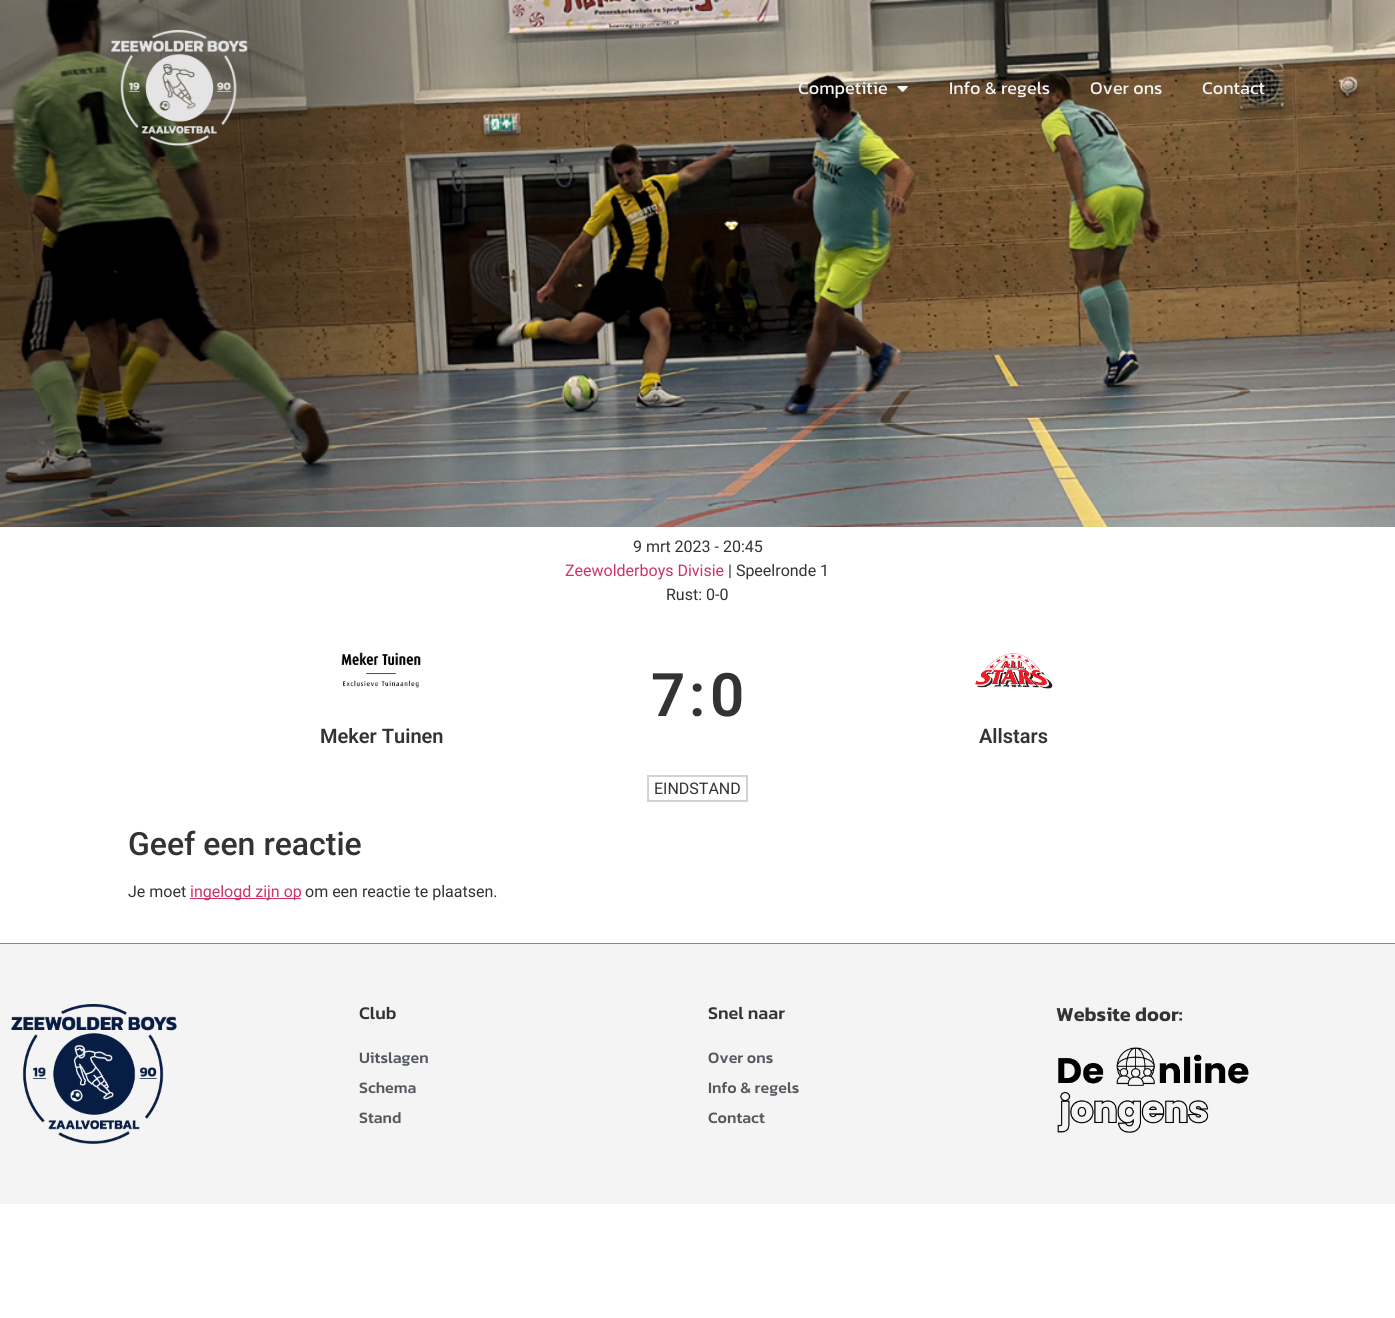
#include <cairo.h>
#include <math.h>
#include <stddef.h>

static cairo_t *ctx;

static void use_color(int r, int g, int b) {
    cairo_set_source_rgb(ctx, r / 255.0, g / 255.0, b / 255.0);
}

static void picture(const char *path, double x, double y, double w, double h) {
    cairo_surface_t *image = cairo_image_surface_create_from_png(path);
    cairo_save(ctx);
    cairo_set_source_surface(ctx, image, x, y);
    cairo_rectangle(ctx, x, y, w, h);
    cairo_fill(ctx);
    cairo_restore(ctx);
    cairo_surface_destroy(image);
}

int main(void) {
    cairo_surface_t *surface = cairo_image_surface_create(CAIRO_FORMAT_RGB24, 1395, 1318);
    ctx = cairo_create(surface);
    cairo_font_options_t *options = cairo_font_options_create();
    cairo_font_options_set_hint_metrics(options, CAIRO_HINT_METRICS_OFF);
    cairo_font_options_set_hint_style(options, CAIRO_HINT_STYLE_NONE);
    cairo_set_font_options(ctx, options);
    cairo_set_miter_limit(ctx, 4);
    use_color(255, 255, 255);
    cairo_paint(ctx);
    picture("img1.png", 0, 0, 1395, 527);
    picture("img2.png", 111, 30, 137, 116);
    cairo_select_font_face(ctx, "Kanit", CAIRO_FONT_SLANT_NORMAL, CAIRO_FONT_WEIGHT_NORMAL);
    cairo_set_font_size(ctx, 18);
    use_color(244, 244, 244);
    cairo_move_to(ctx, 798, 94);
    cairo_show_text(ctx, "Competitie");
    picture("img3.png", 897, 86, 11, 6);
    cairo_move_to(ctx, 949, 94);
    cairo_show_text(ctx, "Info & regels");
    cairo_move_to(ctx, 1090, 94);
    cairo_show_text(ctx, "Over ons");
    cairo_move_to(ctx, 1202, 94);
    cairo_show_text(ctx, "Contact");
    cairo_select_font_face(ctx, "Roboto", CAIRO_FONT_SLANT_NORMAL, CAIRO_FONT_WEIGHT_NORMAL);
    cairo_set_font_size(ctx, 16);
    use_color(51, 51, 51);
    cairo_move_to(ctx, 633, 552);
    cairo_show_text(ctx, "9 mrt 2023 - 20:45");
    use_color(204, 51, 102);
    cairo_move_to(ctx, 565, 576);
    cairo_show_text(ctx, "Zeewolderboys Divisie");
    use_color(51, 51, 51);
    cairo_move_to(ctx, 728, 576);
    cairo_show_text(ctx, "| Speelronde 1");
    cairo_move_to(ctx, 666, 600);
    cairo_show_text(ctx, "Rust: 0-0");
    cairo_select_font_face(ctx, "Roboto SemiBold", CAIRO_FONT_SLANT_NORMAL, CAIRO_FONT_WEIGHT_NORMAL);
    cairo_set_font_size(ctx, 60);
    cairo_move_to(ctx, 651, 716);
    cairo_show_text(ctx, "7");
    cairo_move_to(ctx, 689, 716);
    cairo_show_text(ctx, ":");
    cairo_move_to(ctx, 710, 716);
    cairo_show_text(ctx, "0");
    picture("img4.png", 341, 652, 80, 36);
    cairo_set_font_size(ctx, 20);
    cairo_move_to(ctx, 320, 743);
    cairo_show_text(ctx, "Meker Tuinen");
    picture("img5.png", 975, 653, 78, 36);
    cairo_move_to(ctx, 979, 743);
    cairo_show_text(ctx, "Allstars");
    cairo_rectangle(ctx, 648, 776, 99, 25);
    use_color(206, 212, 218);
    cairo_stroke(ctx);
    cairo_select_font_face(ctx, "Roboto", CAIRO_FONT_SLANT_NORMAL, CAIRO_FONT_WEIGHT_NORMAL);
    cairo_set_font_size(ctx, 16);
    use_color(51, 51, 51);
    cairo_move_to(ctx, 654, 794);
    cairo_show_text(ctx, "EINDSTAND");
    cairo_select_font_face(ctx, "Roboto Medium", CAIRO_FONT_SLANT_NORMAL, CAIRO_FONT_WEIGHT_NORMAL);
    cairo_set_font_size(ctx, 32);
    cairo_move_to(ctx, 128, 855);
    cairo_show_text(ctx, "Geef een reactie");
    cairo_select_font_face(ctx, "Roboto", CAIRO_FONT_SLANT_NORMAL, CAIRO_FONT_WEIGHT_NORMAL);
    cairo_set_font_size(ctx, 16);
    cairo_move_to(ctx, 128, 897);
    cairo_show_text(ctx, "Je moet");
    use_color(204, 51, 102);
    cairo_rectangle(ctx, 190, 898, 111, 1);
    cairo_fill(ctx);
    cairo_move_to(ctx, 190, 897);
    cairo_show_text(ctx, "ingelogd zijn op");
    use_color(51, 51, 51);
    cairo_move_to(ctx, 305, 897);
    cairo_show_text(ctx, "om een reactie te plaatsen.");
    use_color(136, 136, 136);
    cairo_rectangle(ctx, 0, 943, 1395, 1);
    cairo_fill(ctx);
    use_color(244, 244, 244);
    cairo_rectangle(ctx, 0, 944, 1395, 260);
    cairo_fill(ctx);
    picture("img6.png", 11, 1004, 166, 140);
    cairo_select_font_face(ctx, "Kanit Medium", CAIRO_FONT_SLANT_NORMAL, CAIRO_FONT_WEIGHT_NORMAL);
    cairo_set_font_size(ctx, 18);
    use_color(51, 51, 51);
    cairo_move_to(ctx, 359, 1019);
    cairo_show_text(ctx, "Club");
    cairo_set_font_size(ctx, 16);
    use_color(84, 89, 95);
    cairo_move_to(ctx, 359, 1063);
    cairo_show_text(ctx, "Uitslagen");
    cairo_move_to(ctx, 359, 1093);
    cairo_show_text(ctx, "Schema");
    cairo_move_to(ctx, 359, 1123);
    cairo_show_text(ctx, "Stand");
    cairo_set_font_size(ctx, 18);
    use_color(51, 51, 51);
    cairo_move_to(ctx, 708, 1019);
    cairo_show_text(ctx, "Snel naar");
    cairo_set_font_size(ctx, 16);
    use_color(84, 89, 95);
    cairo_move_to(ctx, 708, 1063);
    cairo_show_text(ctx, "Over ons");
    cairo_move_to(ctx, 708, 1093);
    cairo_show_text(ctx, "Info & regels");
    cairo_move_to(ctx, 708, 1123);
    cairo_show_text(ctx, "Contact");
    cairo_select_font_face(ctx, "Kanit SemiBold", CAIRO_FONT_SLANT_NORMAL, CAIRO_FONT_WEIGHT_NORMAL);
    cairo_set_font_size(ctx, 20);
    use_color(51, 51, 51);
    cairo_move_to(ctx, 1056, 1021);
    cairo_show_text(ctx, "Website door:");
    picture("img7.png", 1057, 1047, 192, 86);
    cairo_surface_write_to_png(surface, "result.png");
    cairo_font_options_destroy(options);
    cairo_destroy(ctx);
    cairo_surface_destroy(surface);
    return 0;
}
